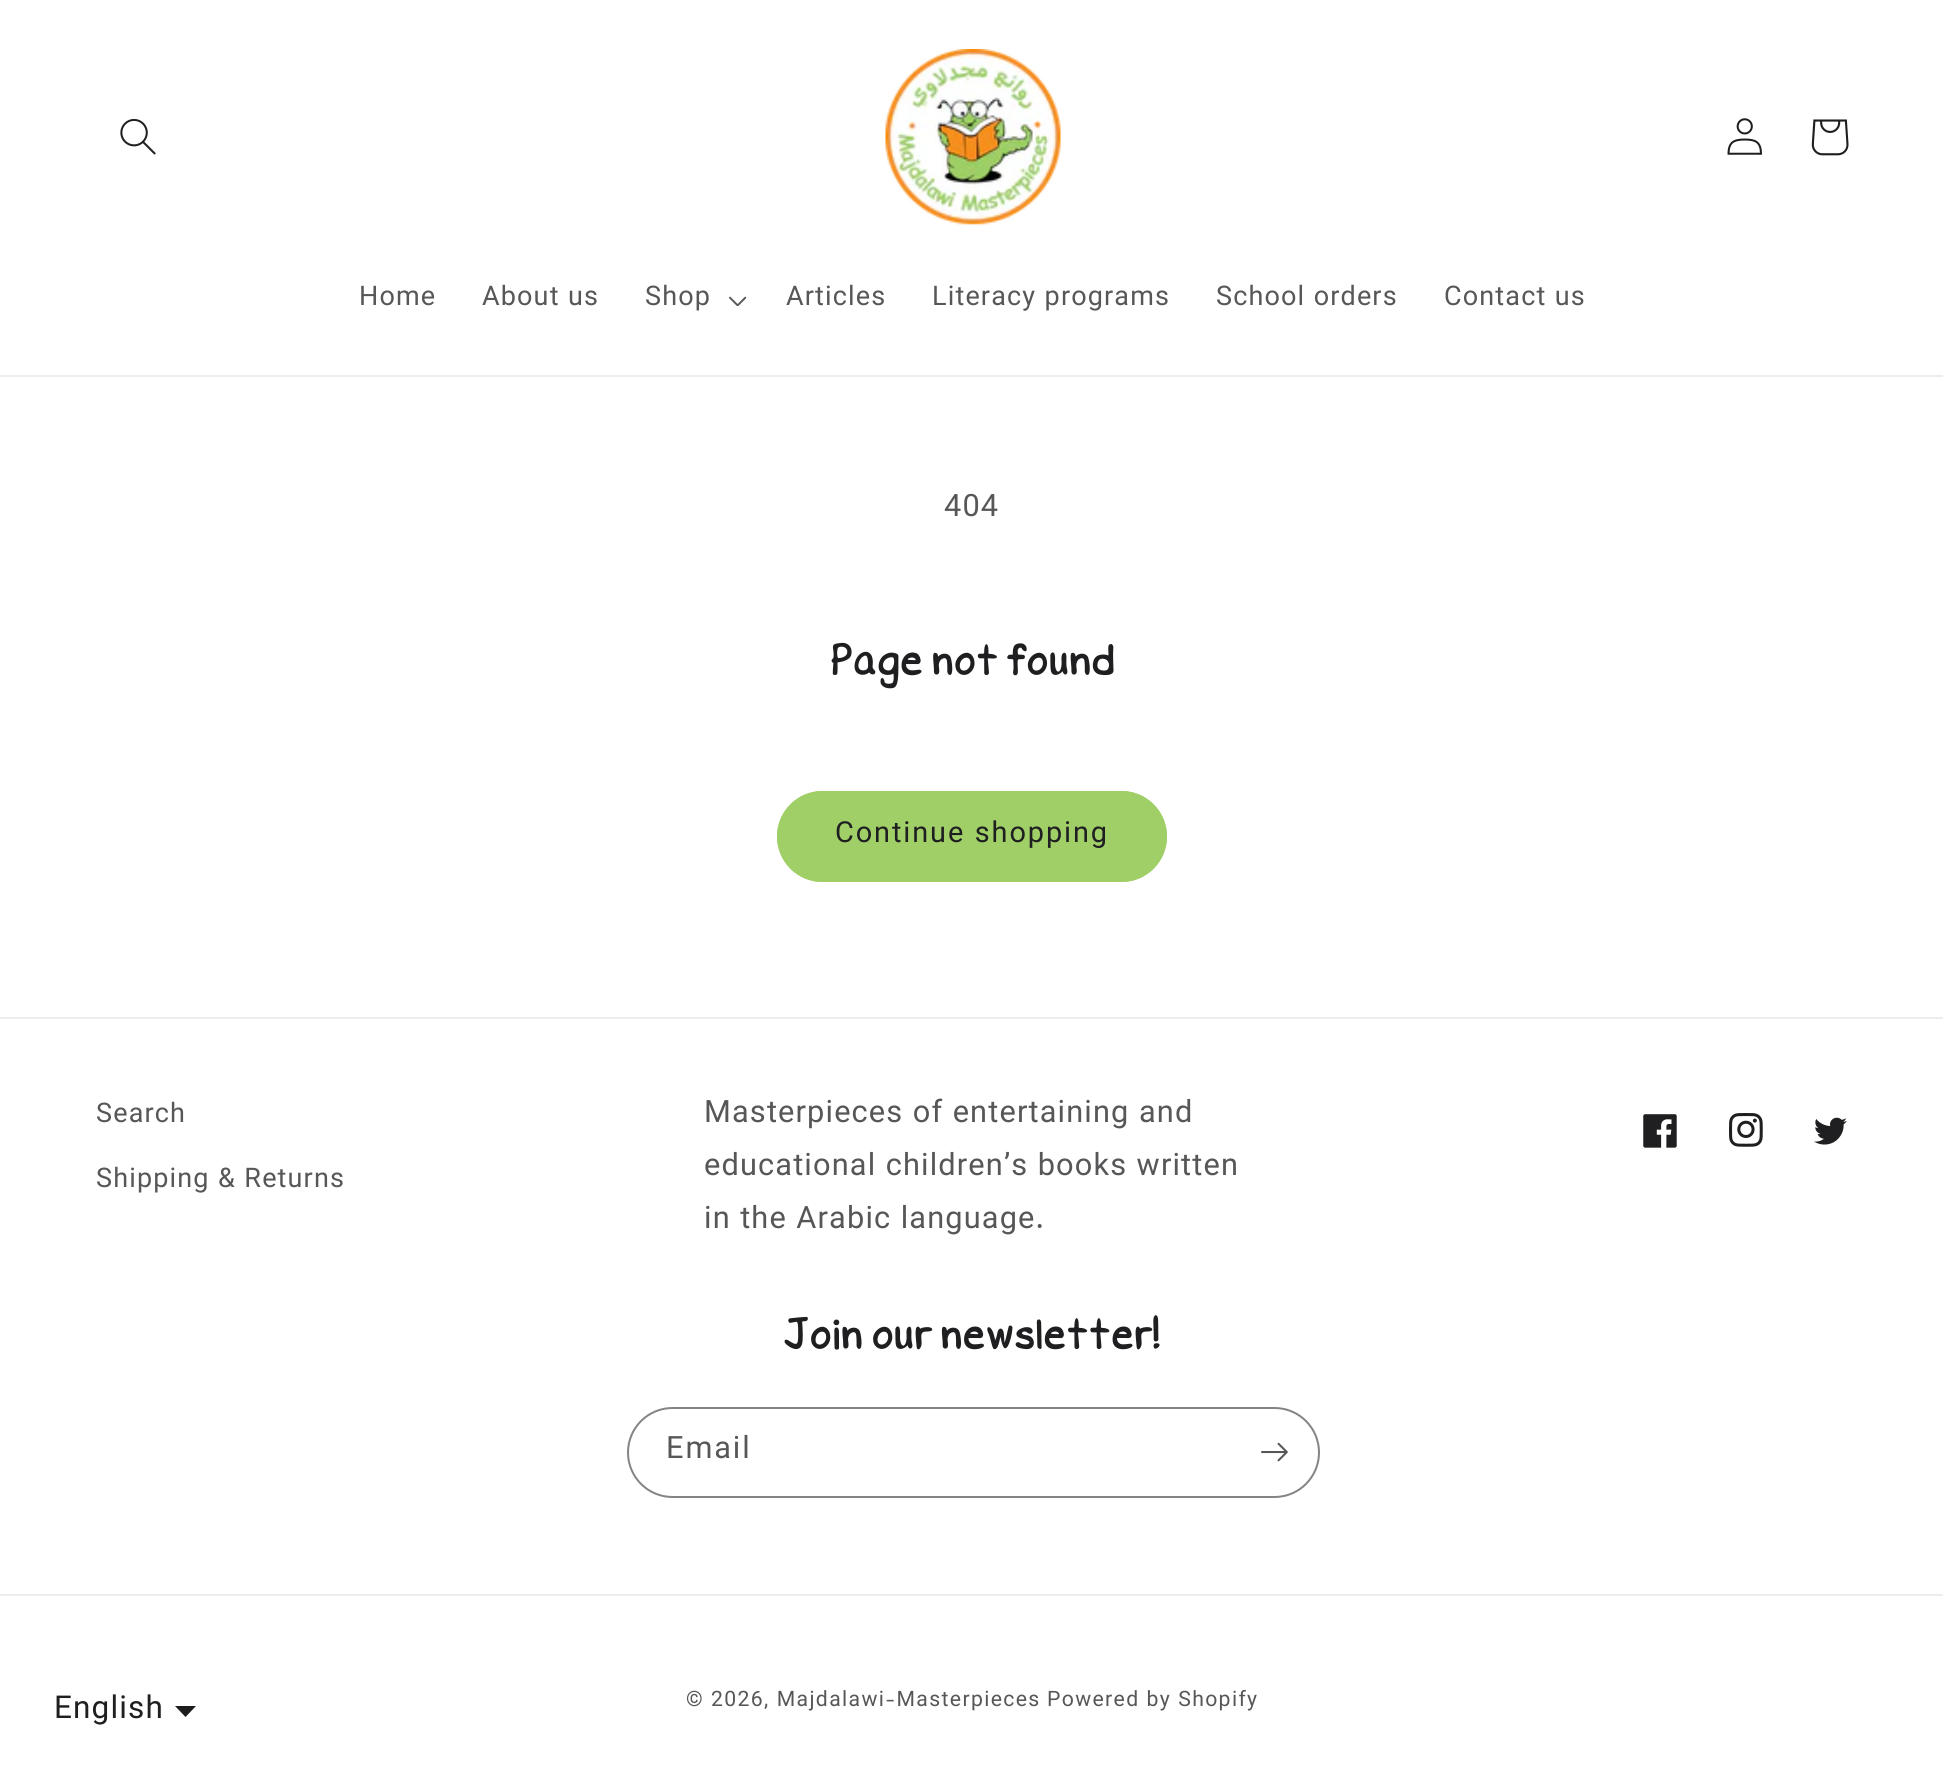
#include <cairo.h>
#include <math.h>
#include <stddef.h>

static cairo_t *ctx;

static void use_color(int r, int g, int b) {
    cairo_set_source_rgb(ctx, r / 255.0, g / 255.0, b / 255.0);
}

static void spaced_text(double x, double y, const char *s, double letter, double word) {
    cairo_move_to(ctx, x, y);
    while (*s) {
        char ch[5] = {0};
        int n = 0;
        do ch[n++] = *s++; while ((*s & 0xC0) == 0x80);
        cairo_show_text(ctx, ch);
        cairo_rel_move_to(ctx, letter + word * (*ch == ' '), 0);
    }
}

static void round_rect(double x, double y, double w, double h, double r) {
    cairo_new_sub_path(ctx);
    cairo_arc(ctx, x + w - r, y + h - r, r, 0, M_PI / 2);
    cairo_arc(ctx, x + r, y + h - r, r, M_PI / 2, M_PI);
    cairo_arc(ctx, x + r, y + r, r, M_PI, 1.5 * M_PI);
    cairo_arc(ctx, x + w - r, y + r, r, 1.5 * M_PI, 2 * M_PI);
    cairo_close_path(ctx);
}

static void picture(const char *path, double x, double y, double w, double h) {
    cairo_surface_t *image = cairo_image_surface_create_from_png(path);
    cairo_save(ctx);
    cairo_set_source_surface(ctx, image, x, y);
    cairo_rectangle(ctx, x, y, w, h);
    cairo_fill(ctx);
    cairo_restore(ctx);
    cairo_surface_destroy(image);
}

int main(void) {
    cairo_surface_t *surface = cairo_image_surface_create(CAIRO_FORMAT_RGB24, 1943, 1789);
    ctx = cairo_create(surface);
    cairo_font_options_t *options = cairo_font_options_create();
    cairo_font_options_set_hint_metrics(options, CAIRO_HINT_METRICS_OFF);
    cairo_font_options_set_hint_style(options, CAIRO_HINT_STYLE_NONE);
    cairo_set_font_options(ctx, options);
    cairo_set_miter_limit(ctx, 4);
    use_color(255, 255, 255);
    cairo_paint(ctx);
    use_color(237, 237, 237);
    cairo_rectangle(ctx, 0, 375, 1943, 2);
    cairo_fill(ctx);
    picture("img1.png", 120, 118, 36, 37);
    picture("img2.png", 885, 49, 176, 176);
    picture("img3.png", 1727, 118, 35, 37);
    picture("img4.png", 1811, 119, 38, 37);
    cairo_select_font_face(ctx, "Vazirmatn", CAIRO_FONT_SLANT_NORMAL, CAIRO_FONT_WEIGHT_NORMAL);
    cairo_set_font_size(ctx, 27);
    use_color(87, 87, 89);
    spaced_text(359, 305, "Home", 1.15, 0);
    spaced_text(482, 305, "About us", 1.15, 0);
    spaced_text(645, 305, "Shop", 1.15, 0);
    picture("img5.png", 729, 296, 18, 10);
    spaced_text(786, 305, "Articles", 1.15, 0);
    spaced_text(932, 305, "Literacy programs", 1.15, 0);
    spaced_text(1216, 305, "School orders", 1.15, 0);
    spaced_text(1444, 305, "Contact us", 1.15, 0);
    cairo_set_font_size(ctx, 30.75);
    spaced_text(944, 516, "404", 1.15, 0);
    cairo_select_font_face(ctx, "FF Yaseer", CAIRO_FONT_SLANT_NORMAL, CAIRO_FONT_WEIGHT_NORMAL);
    cairo_set_font_size(ctx, 52.5);
    use_color(31, 31, 33);
    cairo_move_to(ctx, 830, 674);
    cairo_show_text(ctx, "Page not found");
    use_color(160, 207, 103);
    round_rect(777, 791, 390, 91, 45.5);
    cairo_fill(ctx);
    round_rect(778, 792, 388, 89, 44.5);
    cairo_stroke(ctx);
    cairo_select_font_face(ctx, "Vazirmatn", CAIRO_FONT_SLANT_NORMAL, CAIRO_FONT_WEIGHT_NORMAL);
    cairo_set_font_size(ctx, 28.9);
    use_color(31, 31, 33);
    spaced_text(835, 842, "Continue shopping", 1.9, 0);
    use_color(237, 237, 237);
    cairo_rectangle(ctx, 0, 1017, 1943, 2);
    cairo_fill(ctx);
    cairo_set_font_size(ctx, 27);
    use_color(87, 87, 89);
    spaced_text(96, 1122, "Search", 1.15, 0);
    spaced_text(96, 1187, "Shipping & Returns", 1.15, 0);
    cairo_set_font_size(ctx, 30.75);
    spaced_text(704, 1122, "Masterpieces of entertaining and", 1.15, 0);
    spaced_text(704, 1175, "educational children’s books written", 1.15, 0);
    spaced_text(704, 1228, "in the Arabic language.", 1.15, 0);
    picture("img6.png", 1643, 1114, 34, 34);
    picture("img7.png", 1729, 1113, 34, 34);
    picture("img8.png", 1814, 1117, 33, 28);
    cairo_select_font_face(ctx, "FF Yaseer", CAIRO_FONT_SLANT_NORMAL, CAIRO_FONT_WEIGHT_NORMAL);
    cairo_set_font_size(ctx, 52.5);
    use_color(31, 31, 33);
    cairo_move_to(ctx, 783, 1348);
    cairo_show_text(ctx, "Join our newsletter!");
    round_rect(628, 1408, 691, 89, 44.5);
    use_color(132, 132, 133);
    cairo_stroke(ctx);
    cairo_select_font_face(ctx, "Vazirmatn", CAIRO_FONT_SLANT_NORMAL, CAIRO_FONT_WEIGHT_NORMAL);
    cairo_set_font_size(ctx, 30.75);
    use_color(87, 87, 89);
    spaced_text(666, 1458, "Email", 1.9, 0);
    picture("img9.png", 1261, 1442, 27, 20);
    use_color(237, 237, 237);
    cairo_rectangle(ctx, 0, 1594, 1943, 2);
    cairo_fill(ctx);
    cairo_set_font_size(ctx, 21.2);
    use_color(87, 87, 89);
    spaced_text(686, 1706, "© 2026, Majdalawi-Masterpieces", 1.35, 0);
    spaced_text(1047, 1706, "Powered by Shopify", 1.35, 0);
    cairo_set_font_size(ctx, 31.5);
    use_color(31, 31, 33);
    spaced_text(54, 1718, "English", 1.15, 0);
    use_color(29, 29, 29);
    cairo_new_path(ctx);
    cairo_move_to(ctx, 175, 1706);
    cairo_line_to(ctx, 196, 1706);
    cairo_line_to(ctx, 185.5, 1717);
    cairo_close_path(ctx);
    cairo_fill(ctx);
    cairo_surface_write_to_png(surface, "result.png");
    cairo_font_options_destroy(options);
    cairo_destroy(ctx);
    cairo_surface_destroy(surface);
    return 0;
}
